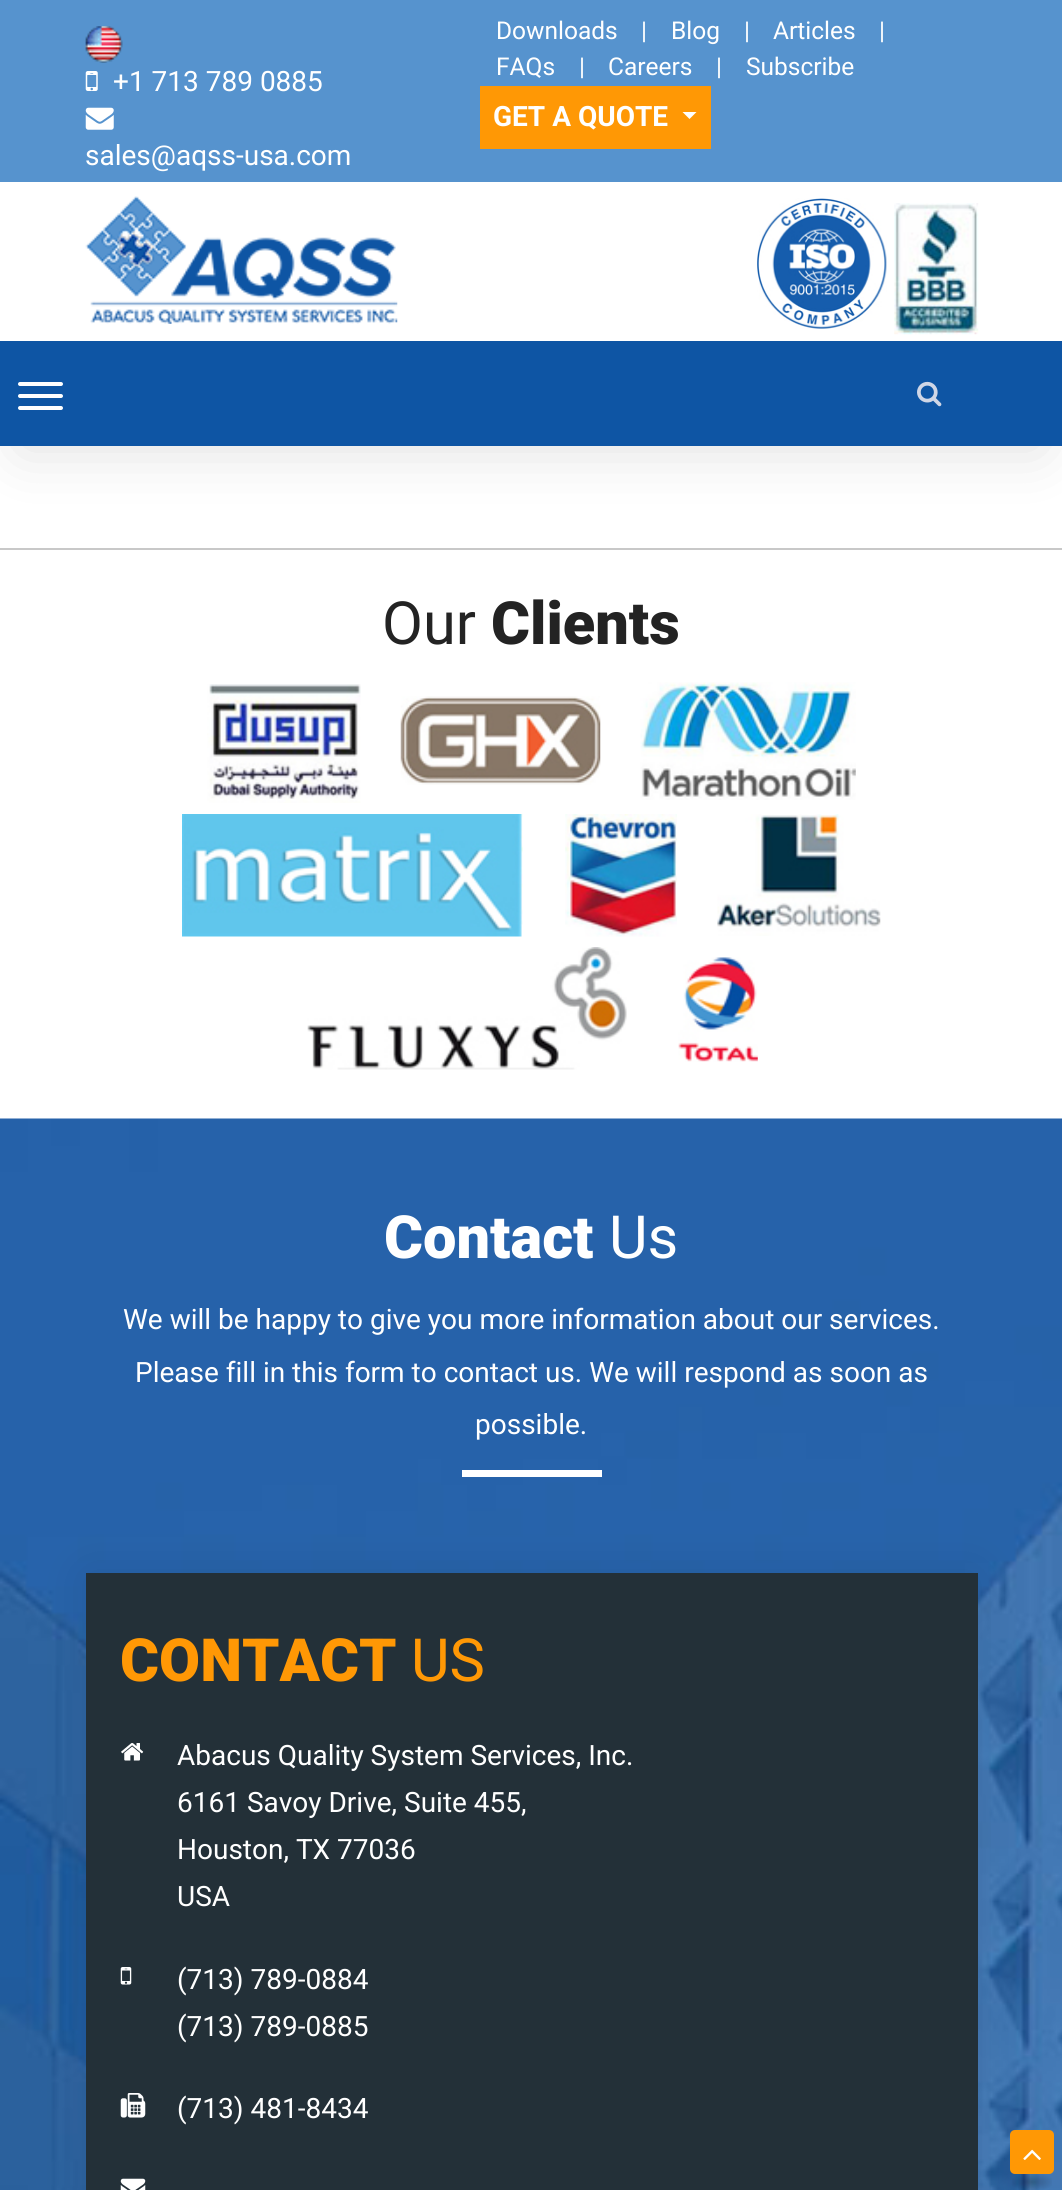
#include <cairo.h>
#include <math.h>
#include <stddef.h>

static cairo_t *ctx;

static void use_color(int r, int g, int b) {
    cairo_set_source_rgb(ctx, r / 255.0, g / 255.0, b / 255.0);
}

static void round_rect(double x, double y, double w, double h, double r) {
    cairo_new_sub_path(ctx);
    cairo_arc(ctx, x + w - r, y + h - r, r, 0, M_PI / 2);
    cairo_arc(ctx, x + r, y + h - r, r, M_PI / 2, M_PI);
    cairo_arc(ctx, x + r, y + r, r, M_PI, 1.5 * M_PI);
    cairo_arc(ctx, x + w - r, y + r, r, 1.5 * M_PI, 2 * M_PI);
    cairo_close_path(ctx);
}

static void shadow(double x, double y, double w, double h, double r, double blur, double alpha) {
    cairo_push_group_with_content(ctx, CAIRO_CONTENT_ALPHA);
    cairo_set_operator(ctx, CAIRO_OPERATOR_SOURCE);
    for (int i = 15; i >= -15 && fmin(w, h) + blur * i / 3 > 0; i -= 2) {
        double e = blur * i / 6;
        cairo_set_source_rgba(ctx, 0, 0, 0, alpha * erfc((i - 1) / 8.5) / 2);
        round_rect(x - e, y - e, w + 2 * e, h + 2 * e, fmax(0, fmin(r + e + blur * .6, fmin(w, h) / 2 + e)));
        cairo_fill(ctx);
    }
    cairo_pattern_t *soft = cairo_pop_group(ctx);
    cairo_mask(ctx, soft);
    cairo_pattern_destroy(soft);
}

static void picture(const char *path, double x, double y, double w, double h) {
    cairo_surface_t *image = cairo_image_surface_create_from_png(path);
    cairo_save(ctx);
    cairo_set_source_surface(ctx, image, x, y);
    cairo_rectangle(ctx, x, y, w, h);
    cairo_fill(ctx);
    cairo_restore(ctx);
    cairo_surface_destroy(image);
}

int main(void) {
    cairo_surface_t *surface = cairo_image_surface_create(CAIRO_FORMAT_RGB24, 1062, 2190);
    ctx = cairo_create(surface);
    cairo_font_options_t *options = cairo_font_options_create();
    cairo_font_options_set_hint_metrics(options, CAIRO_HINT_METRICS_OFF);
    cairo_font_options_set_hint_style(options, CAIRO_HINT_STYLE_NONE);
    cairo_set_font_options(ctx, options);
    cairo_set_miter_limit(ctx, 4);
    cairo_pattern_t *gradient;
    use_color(255, 255, 255);
    cairo_paint(ctx);
    use_color(35, 35, 35);
    shadow(21, 44, 1020, 404, 0, 30.5, 0.15);
    use_color(86, 147, 206);
    cairo_rectangle(ctx, 0, 0, 1062, 182);
    cairo_fill(ctx);
    picture("img1.png", 85, 26, 38, 37);
    picture("img2.png", 85, 71, 13, 20);
    cairo_select_font_face(ctx, "Roboto", CAIRO_FONT_SLANT_NORMAL, CAIRO_FONT_WEIGHT_NORMAL);
    cairo_set_font_size(ctx, 28);
    use_color(255, 255, 255);
    cairo_move_to(ctx, 113, 91);
    cairo_show_text(ctx, "+1 713 789 0885");
    picture("img3.png", 85, 107, 29, 23);
    cairo_move_to(ctx, 85, 165);
    cairo_show_text(ctx, "sales@aqss-usa.com");
    cairo_set_font_size(ctx, 24.5);
    cairo_move_to(ctx, 496, 39);
    cairo_show_text(ctx, "Downloads");
    cairo_move_to(ctx, 641, 39);
    cairo_show_text(ctx, "|");
    cairo_move_to(ctx, 671, 39);
    cairo_show_text(ctx, "Blog");
    cairo_move_to(ctx, 744, 39);
    cairo_show_text(ctx, "|");
    cairo_move_to(ctx, 773, 39);
    cairo_show_text(ctx, "Articles");
    cairo_move_to(ctx, 879, 39);
    cairo_show_text(ctx, "|");
    cairo_move_to(ctx, 496, 75);
    cairo_show_text(ctx, "FAQs");
    cairo_move_to(ctx, 579, 75);
    cairo_show_text(ctx, "|");
    cairo_move_to(ctx, 608, 75);
    cairo_show_text(ctx, "Careers");
    cairo_move_to(ctx, 716, 75);
    cairo_show_text(ctx, "|");
    cairo_move_to(ctx, 746, 75);
    cairo_show_text(ctx, "Subscribe");
    use_color(255, 152, 5);
    cairo_rectangle(ctx, 480, 86, 231, 63);
    cairo_fill(ctx);
    cairo_select_font_face(ctx, "Roboto", CAIRO_FONT_SLANT_NORMAL, CAIRO_FONT_WEIGHT_BOLD);
    cairo_set_font_size(ctx, 28);
    use_color(255, 255, 255);
    cairo_move_to(ctx, 493, 126);
    cairo_show_text(ctx, "GET A QUOTE");
    cairo_new_path(ctx);
    cairo_move_to(ctx, 682.5, 112);
    cairo_line_to(ctx, 696.5, 112);
    cairo_line_to(ctx, 689.5, 119);
    cairo_close_path(ctx);
    cairo_fill(ctx);
    cairo_rectangle(ctx, 0, 182, 1062, 159);
    cairo_fill(ctx);
    picture("img4.png", 85, 196, 313, 128);
    picture("img5.png", 757, 198, 130, 131);
    picture("img6.png", 894, 203, 85, 132);
    use_color(14, 85, 164);
    cairo_rectangle(ctx, 0, 341, 1062, 105);
    cairo_fill(ctx);
    use_color(255, 255, 255);
    round_rect(18, 382, 45, 4, 2);
    cairo_fill(ctx);
    round_rect(18, 394, 45, 4, 2);
    cairo_fill(ctx);
    round_rect(18, 406, 45, 4, 2);
    cairo_fill(ctx);
    picture("img7.png", 917, 381, 25, 26);
    use_color(200, 200, 200);
    cairo_rectangle(ctx, 0, 548, 1062, 2);
    cairo_fill(ctx);
    cairo_select_font_face(ctx, "Roboto", CAIRO_FONT_SLANT_NORMAL, CAIRO_FONT_WEIGHT_NORMAL);
    cairo_set_font_size(ctx, 59.5);
    use_color(35, 35, 35);
    cairo_move_to(ctx, 382, 644);
    cairo_show_text(ctx, "Our");
    cairo_select_font_face(ctx, "Roboto Black", CAIRO_FONT_SLANT_NORMAL, CAIRO_FONT_WEIGHT_NORMAL);
    cairo_move_to(ctx, 491, 644);
    cairo_show_text(ctx, "Clients");
    picture("img8.png", 207, 684, 154, 119);
    picture("img9.png", 400, 696, 201, 89);
    picture("img10.png", 640, 682, 216, 118);
    picture("img11.png", 182, 814, 341, 123);
    picture("img12.png", 565, 814, 112, 123);
    picture("img13.png", 717, 814, 164, 122);
    picture("img14.png", 307, 947, 320, 123);
    picture("img15.png", 678, 957, 80, 105);
    picture("img16.png", 0, 1118, 1062, 1072);
    use_color(255, 255, 255);
    cairo_move_to(ctx, 384, 1258);
    cairo_show_text(ctx, "Contact");
    cairo_select_font_face(ctx, "Roboto", CAIRO_FONT_SLANT_NORMAL, CAIRO_FONT_WEIGHT_NORMAL);
    cairo_move_to(ctx, 609, 1258);
    cairo_show_text(ctx, "Us");
    cairo_set_font_size(ctx, 28);
    cairo_move_to(ctx, 123, 1329);
    cairo_show_text(ctx, "We will be happy to give you more information about our services.");
    cairo_move_to(ctx, 135, 1382);
    cairo_show_text(ctx, "Please fill in this form to contact us. We will respond as soon as");
    cairo_move_to(ctx, 475, 1434);
    cairo_show_text(ctx, "possible.");
    cairo_rectangle(ctx, 462, 1470, 140, 7);
    cairo_fill(ctx);
    use_color(0, 0, 0);
    shadow(86, 1573, 892, 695, 0, 26, 0.08);
    use_color(35, 48, 56);
    cairo_rectangle(ctx, 86, 1573, 892, 617);
    cairo_fill(ctx);
    cairo_select_font_face(ctx, "Roboto Black", CAIRO_FONT_SLANT_NORMAL, CAIRO_FONT_WEIGHT_NORMAL);
    cairo_set_font_size(ctx, 59.5);
    use_color(255, 152, 5);
    cairo_move_to(ctx, 120, 1681);
    cairo_show_text(ctx, "CONTACT");
    cairo_select_font_face(ctx, "Roboto", CAIRO_FONT_SLANT_NORMAL, CAIRO_FONT_WEIGHT_NORMAL);
    cairo_move_to(ctx, 411, 1681);
    cairo_show_text(ctx, "US");
    picture("img17.png", 121, 1743, 23, 18);
    cairo_set_font_size(ctx, 28);
    use_color(255, 255, 255);
    cairo_move_to(ctx, 177, 1765);
    cairo_show_text(ctx, "Abacus Quality System Services, Inc.");
    cairo_move_to(ctx, 177, 1812);
    cairo_show_text(ctx, "6161 Savoy Drive, Suite 455,");
    cairo_move_to(ctx, 177, 1859);
    cairo_show_text(ctx, "Houston, TX 77036");
    cairo_move_to(ctx, 177, 1906);
    cairo_show_text(ctx, "USA");
    picture("img18.png", 120, 1967, 12, 18);
    cairo_move_to(ctx, 177, 1989);
    cairo_show_text(ctx, "(713) 789-0884");
    cairo_move_to(ctx, 177, 2036);
    cairo_show_text(ctx, "(713) 789-0885");
    picture("img19.png", 120, 2093, 26, 25);
    cairo_move_to(ctx, 177, 2118);
    cairo_show_text(ctx, "(713) 481-8434");
    picture("img20.png", 120, 2178, 26, 12);
    use_color(255, 152, 5);
    round_rect(1010, 2130, 44, 44, 5);
    cairo_fill(ctx);
    picture("img21.png", 1023, 2149, 18, 11);
    gradient = cairo_pattern_create_radial(0, 0, 0, 0, 0, 1);
    cairo_pattern_set_matrix(gradient, &(cairo_matrix_t){1.0 / 28, 0, 0, 1.0 / 12, -1.0 * 1032 / 28, -1.0 * 2182 / 12});
    cairo_pattern_add_color_stop_rgba(gradient, 0, 0, 0, 0, 0.25);
    cairo_pattern_add_color_stop_rgba(gradient, 0.8, 0, 0, 0, 0);
    cairo_set_source(ctx, gradient);
    cairo_pattern_destroy(gradient);
    cairo_rectangle(ctx, 1012, 2174, 40, 16);
    cairo_fill(ctx);
    cairo_surface_write_to_png(surface, "result.png");
    cairo_font_options_destroy(options);
    cairo_destroy(ctx);
    cairo_surface_destroy(surface);
    return 0;
}
